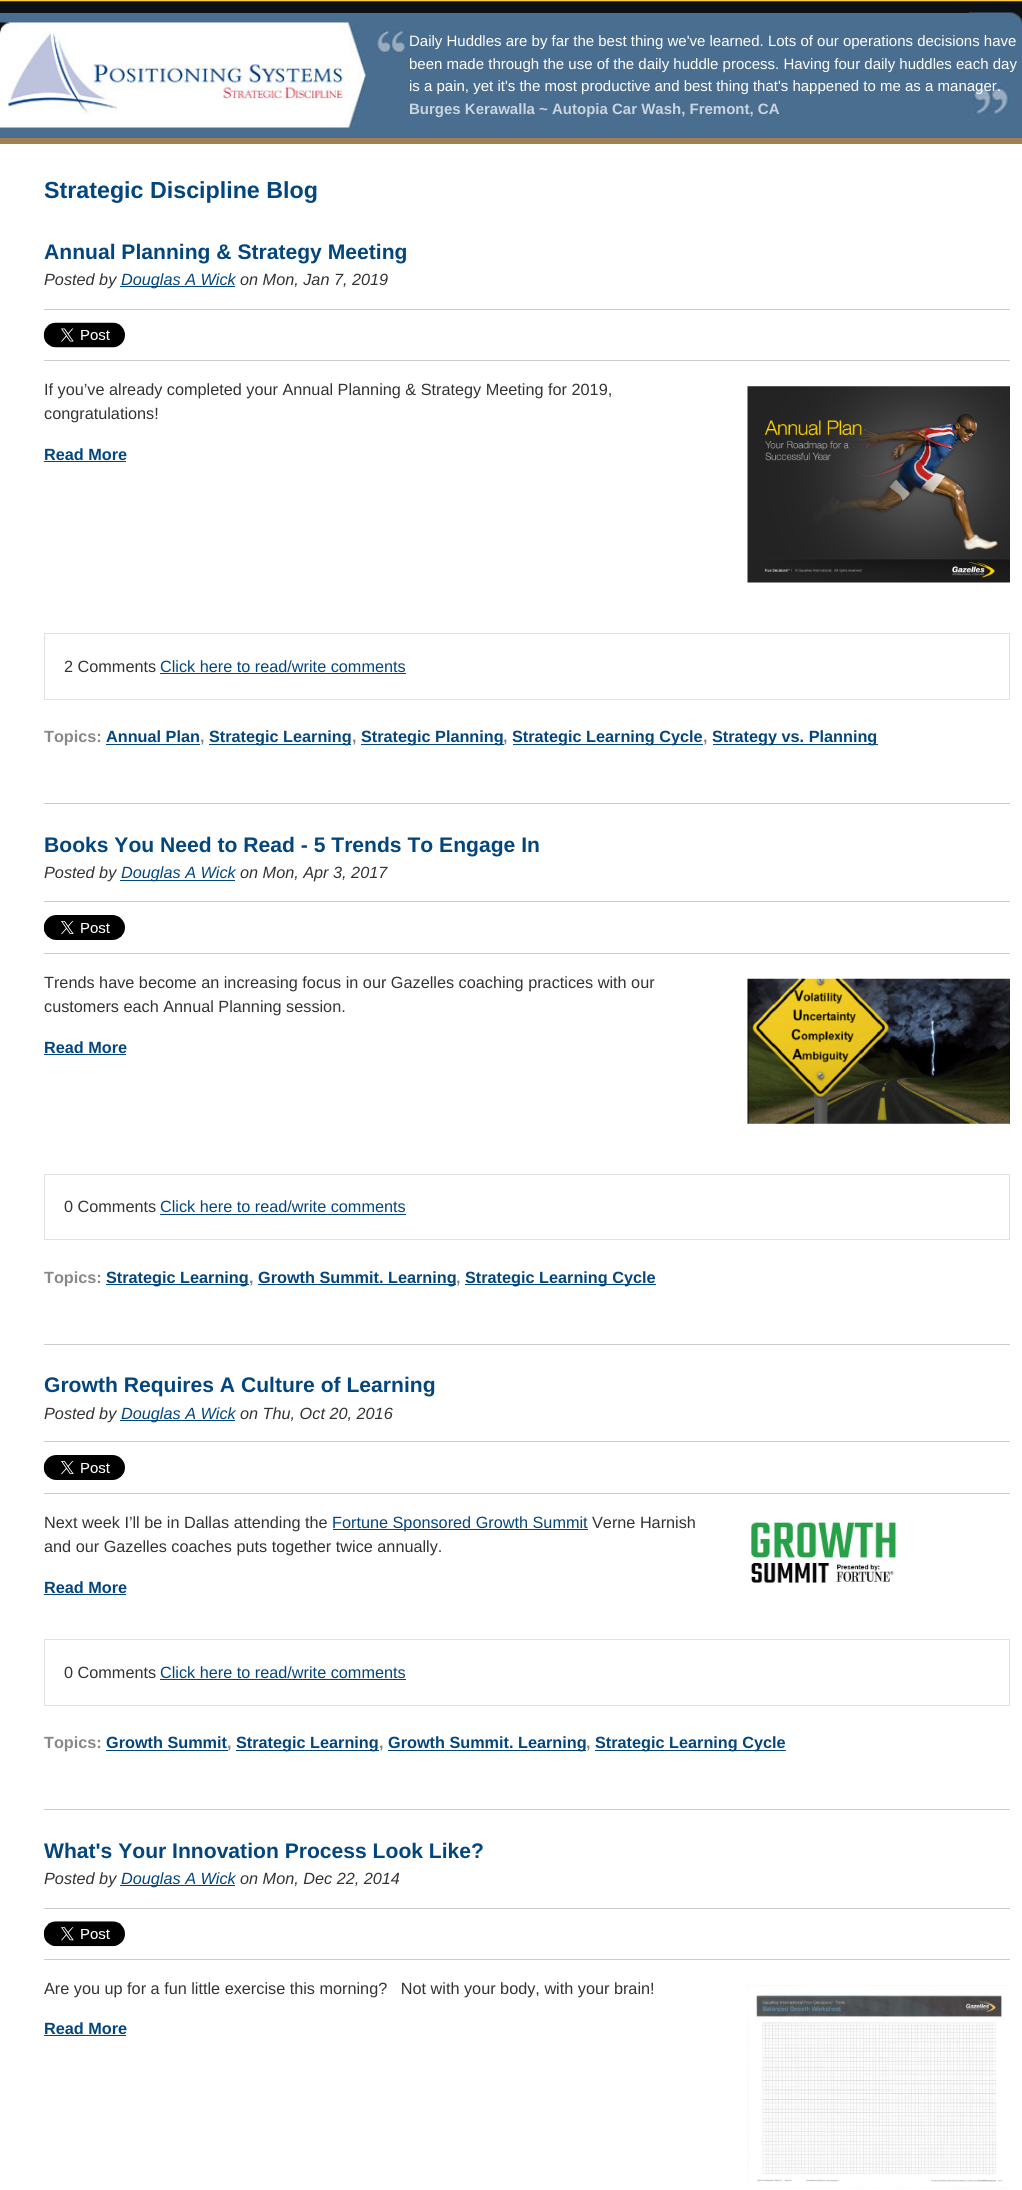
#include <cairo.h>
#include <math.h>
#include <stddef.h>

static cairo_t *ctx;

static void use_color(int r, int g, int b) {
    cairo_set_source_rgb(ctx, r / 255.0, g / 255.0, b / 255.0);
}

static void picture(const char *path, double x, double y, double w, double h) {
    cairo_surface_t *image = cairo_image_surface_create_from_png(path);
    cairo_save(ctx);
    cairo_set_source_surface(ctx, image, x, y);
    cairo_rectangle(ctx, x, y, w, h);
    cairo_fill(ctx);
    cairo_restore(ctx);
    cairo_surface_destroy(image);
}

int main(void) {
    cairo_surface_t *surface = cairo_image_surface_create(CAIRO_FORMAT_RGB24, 1022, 2190);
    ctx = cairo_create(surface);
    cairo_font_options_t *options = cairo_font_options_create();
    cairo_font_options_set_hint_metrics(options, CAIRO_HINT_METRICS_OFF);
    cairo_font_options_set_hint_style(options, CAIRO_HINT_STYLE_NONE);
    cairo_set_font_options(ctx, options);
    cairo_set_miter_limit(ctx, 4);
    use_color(255, 255, 255);
    cairo_paint(ctx);
    picture("img1.png", 0, 0, 1022, 13);
    use_color(74, 110, 144);
    cairo_rectangle(ctx, 0, 13, 1022, 125);
    cairo_fill(ctx);
    use_color(160, 129, 82);
    cairo_rectangle(ctx, 0, 138, 1022, 6);
    cairo_fill(ctx);
    picture("img2.png", 0, 22, 409, 106);
    picture("img3.png", 968, 12, 54, 108);
    cairo_select_font_face(ctx, "Liberation Sans", CAIRO_FONT_SLANT_NORMAL, CAIRO_FONT_WEIGHT_NORMAL);
    cairo_set_font_size(ctx, 15);
    use_color(255, 255, 255);
    cairo_move_to(ctx, 409, 46);
    cairo_show_text(ctx, "Daily Huddles are by far the best thing we've learned. Lots of our operations decisions have");
    cairo_move_to(ctx, 409, 69);
    cairo_show_text(ctx, "been made through the use of the daily huddle process. Having four daily huddles each day");
    cairo_move_to(ctx, 409, 91);
    cairo_show_text(ctx, "is a pain, yet it's the most productive and best thing that's happened to me as a manager.");
    cairo_select_font_face(ctx, "Liberation Sans", CAIRO_FONT_SLANT_NORMAL, CAIRO_FONT_WEIGHT_BOLD);
    use_color(201, 213, 222);
    cairo_move_to(ctx, 409, 114);
    cairo_show_text(ctx, "Burges Kerawalla ~ Autopia Car Wash, Fremont, CA");
    cairo_set_font_size(ctx, 23.25);
    use_color(3, 70, 125);
    cairo_move_to(ctx, 44, 198);
    cairo_show_text(ctx, "Strategic Discipline Blog");
    use_color(204, 204, 204);
    cairo_rectangle(ctx, 44, 803, 966, 1);
    cairo_fill(ctx);
    cairo_set_font_size(ctx, 21.1);
    use_color(3, 70, 125);
    cairo_move_to(ctx, 44, 259);
    cairo_show_text(ctx, "Annual Planning & Strategy Meeting");
    cairo_select_font_face(ctx, "Liberation Sans", CAIRO_FONT_SLANT_ITALIC, CAIRO_FONT_WEIGHT_NORMAL);
    cairo_set_font_size(ctx, 16.25);
    use_color(51, 51, 51);
    cairo_move_to(ctx, 44, 285);
    cairo_show_text(ctx, "Posted by");
    use_color(3, 70, 125);
    cairo_rectangle(ctx, 120, 286, 115, 1);
    cairo_fill(ctx);
    cairo_move_to(ctx, 121, 285);
    cairo_show_text(ctx, "Douglas A Wick");
    use_color(51, 51, 51);
    cairo_move_to(ctx, 240, 285);
    cairo_show_text(ctx, "on Mon, Jan 7, 2019");
    use_color(204, 204, 204);
    cairo_rectangle(ctx, 44, 309, 966, 1);
    cairo_fill(ctx);
    cairo_rectangle(ctx, 44, 360, 966, 1);
    cairo_fill(ctx);
    picture("img4.png", 43, 322, 82, 26);
    cairo_select_font_face(ctx, "Liberation Sans", CAIRO_FONT_SLANT_NORMAL, CAIRO_FONT_WEIGHT_NORMAL);
    use_color(51, 51, 51);
    cairo_move_to(ctx, 44, 395);
    cairo_show_text(ctx, "If you’ve already completed your Annual Planning & Strategy Meeting for 2019,");
    cairo_move_to(ctx, 44, 419);
    cairo_show_text(ctx, "congratulations!");
    picture("img5.png", 747, 386, 263, 197);
    cairo_select_font_face(ctx, "Liberation Sans", CAIRO_FONT_SLANT_NORMAL, CAIRO_FONT_WEIGHT_BOLD);
    use_color(3, 70, 125);
    cairo_move_to(ctx, 44, 460);
    cairo_show_text(ctx, "Read More");
    cairo_rectangle(ctx, 44, 461, 82, 1);
    cairo_fill(ctx);
    cairo_rectangle(ctx, 44.5, 633.5, 965, 66);
    use_color(226, 226, 226);
    cairo_set_line_width(ctx, 1);
    cairo_stroke(ctx);
    cairo_select_font_face(ctx, "Liberation Sans", CAIRO_FONT_SLANT_NORMAL, CAIRO_FONT_WEIGHT_NORMAL);
    use_color(51, 51, 51);
    cairo_move_to(ctx, 64, 672);
    cairo_show_text(ctx, "2 Comments");
    use_color(3, 70, 125);
    cairo_move_to(ctx, 160, 672);
    cairo_show_text(ctx, "Click here to read/write comments");
    cairo_rectangle(ctx, 160, 673, 246, 1);
    cairo_fill(ctx);
    cairo_select_font_face(ctx, "Liberation Sans", CAIRO_FONT_SLANT_NORMAL, CAIRO_FONT_WEIGHT_BOLD);
    use_color(136, 136, 136);
    cairo_move_to(ctx, 44, 742);
    cairo_show_text(ctx, "Topics:");
    use_color(3, 70, 125);
    cairo_move_to(ctx, 106, 742);
    cairo_show_text(ctx, "Annual Plan");
    cairo_rectangle(ctx, 106, 744, 94, 1);
    cairo_fill(ctx);
    use_color(136, 136, 136);
    cairo_move_to(ctx, 200, 742);
    cairo_show_text(ctx, ",");
    use_color(3, 70, 125);
    cairo_rectangle(ctx, 209, 744, 142, 1);
    cairo_fill(ctx);
    cairo_move_to(ctx, 209, 742);
    cairo_show_text(ctx, "Strategic Learning");
    use_color(136, 136, 136);
    cairo_move_to(ctx, 352, 742);
    cairo_show_text(ctx, ",");
    use_color(3, 70, 125);
    cairo_rectangle(ctx, 361, 744, 143, 1);
    cairo_fill(ctx);
    cairo_move_to(ctx, 361, 742);
    cairo_show_text(ctx, "Strategic Planning");
    use_color(136, 136, 136);
    cairo_move_to(ctx, 503, 742);
    cairo_show_text(ctx, ",");
    use_color(3, 70, 125);
    cairo_rectangle(ctx, 513, 744, 190, 1);
    cairo_fill(ctx);
    cairo_move_to(ctx, 512, 742);
    cairo_show_text(ctx, "Strategic Learning Cycle");
    use_color(136, 136, 136);
    cairo_move_to(ctx, 703, 742);
    cairo_show_text(ctx, ",");
    use_color(3, 70, 125);
    cairo_rectangle(ctx, 713, 744, 165, 1);
    cairo_fill(ctx);
    cairo_move_to(ctx, 712, 742);
    cairo_show_text(ctx, "Strategy vs. Planning");
    use_color(204, 204, 204);
    cairo_rectangle(ctx, 44, 1344, 966, 1);
    cairo_fill(ctx);
    cairo_set_font_size(ctx, 21.1);
    use_color(3, 70, 125);
    cairo_move_to(ctx, 44, 852);
    cairo_show_text(ctx, "Books You Need to Read - 5 Trends To Engage In");
    cairo_select_font_face(ctx, "Liberation Sans", CAIRO_FONT_SLANT_ITALIC, CAIRO_FONT_WEIGHT_NORMAL);
    cairo_set_font_size(ctx, 16.25);
    use_color(51, 51, 51);
    cairo_move_to(ctx, 44, 878);
    cairo_show_text(ctx, "Posted by");
    use_color(3, 70, 125);
    cairo_rectangle(ctx, 120, 880, 115, 1);
    cairo_fill(ctx);
    cairo_move_to(ctx, 121, 878);
    cairo_show_text(ctx, "Douglas A Wick");
    use_color(51, 51, 51);
    cairo_move_to(ctx, 240, 878);
    cairo_show_text(ctx, "on Mon, Apr 3, 2017");
    use_color(204, 204, 204);
    cairo_rectangle(ctx, 44, 901, 966, 1);
    cairo_fill(ctx);
    cairo_rectangle(ctx, 44, 953, 966, 1);
    cairo_fill(ctx);
    picture("img6.png", 43, 915, 82, 25);
    cairo_select_font_face(ctx, "Liberation Sans", CAIRO_FONT_SLANT_NORMAL, CAIRO_FONT_WEIGHT_NORMAL);
    use_color(51, 51, 51);
    cairo_move_to(ctx, 44, 988);
    cairo_show_text(ctx, "Trends have become an increasing focus in our Gazelles coaching practices with our");
    cairo_move_to(ctx, 44, 1012);
    cairo_show_text(ctx, "customers each Annual Planning session.");
    picture("img7.png", 747, 978, 263, 146);
    cairo_select_font_face(ctx, "Liberation Sans", CAIRO_FONT_SLANT_NORMAL, CAIRO_FONT_WEIGHT_BOLD);
    use_color(3, 70, 125);
    cairo_move_to(ctx, 44, 1053);
    cairo_show_text(ctx, "Read More");
    cairo_rectangle(ctx, 44, 1054, 82, 1);
    cairo_fill(ctx);
    cairo_rectangle(ctx, 44.5, 1174.5, 965, 65);
    use_color(226, 226, 226);
    cairo_stroke(ctx);
    cairo_select_font_face(ctx, "Liberation Sans", CAIRO_FONT_SLANT_NORMAL, CAIRO_FONT_WEIGHT_NORMAL);
    use_color(51, 51, 51);
    cairo_move_to(ctx, 64, 1212);
    cairo_show_text(ctx, "0 Comments");
    use_color(3, 70, 125);
    cairo_move_to(ctx, 160, 1212);
    cairo_show_text(ctx, "Click here to read/write comments");
    cairo_rectangle(ctx, 160, 1214, 246, 1);
    cairo_fill(ctx);
    cairo_select_font_face(ctx, "Liberation Sans", CAIRO_FONT_SLANT_NORMAL, CAIRO_FONT_WEIGHT_BOLD);
    use_color(136, 136, 136);
    cairo_move_to(ctx, 44, 1283);
    cairo_show_text(ctx, "Topics:");
    use_color(3, 70, 125);
    cairo_rectangle(ctx, 106, 1284, 143, 1);
    cairo_fill(ctx);
    cairo_move_to(ctx, 106, 1283);
    cairo_show_text(ctx, "Strategic Learning");
    use_color(136, 136, 136);
    cairo_move_to(ctx, 249, 1283);
    cairo_show_text(ctx, ",");
    use_color(3, 70, 125);
    cairo_rectangle(ctx, 258, 1284, 198, 1);
    cairo_fill(ctx);
    cairo_move_to(ctx, 258, 1283);
    cairo_show_text(ctx, "Growth Summit. Learning");
    use_color(136, 136, 136);
    cairo_move_to(ctx, 456, 1283);
    cairo_show_text(ctx, ",");
    use_color(3, 70, 125);
    cairo_rectangle(ctx, 465, 1284, 191, 1);
    cairo_fill(ctx);
    cairo_move_to(ctx, 465, 1283);
    cairo_show_text(ctx, "Strategic Learning Cycle");
    use_color(204, 204, 204);
    cairo_rectangle(ctx, 44, 1809, 966, 1);
    cairo_fill(ctx);
    cairo_set_font_size(ctx, 21.1);
    use_color(3, 70, 125);
    cairo_move_to(ctx, 44, 1392);
    cairo_show_text(ctx, "Growth Requires A Culture of Learning");
    cairo_select_font_face(ctx, "Liberation Sans", CAIRO_FONT_SLANT_ITALIC, CAIRO_FONT_WEIGHT_NORMAL);
    cairo_set_font_size(ctx, 16.25);
    use_color(51, 51, 51);
    cairo_move_to(ctx, 44, 1419);
    cairo_show_text(ctx, "Posted by");
    use_color(3, 70, 125);
    cairo_rectangle(ctx, 120, 1420, 115, 1);
    cairo_fill(ctx);
    cairo_move_to(ctx, 121, 1419);
    cairo_show_text(ctx, "Douglas A Wick");
    use_color(51, 51, 51);
    cairo_move_to(ctx, 240, 1419);
    cairo_show_text(ctx, "on Thu, Oct 20, 2016");
    use_color(204, 204, 204);
    cairo_rectangle(ctx, 44, 1441, 966, 1);
    cairo_fill(ctx);
    cairo_rectangle(ctx, 44, 1493, 966, 1);
    cairo_fill(ctx);
    picture("img6.png", 43, 1455, 82, 25);
    cairo_select_font_face(ctx, "Liberation Sans", CAIRO_FONT_SLANT_NORMAL, CAIRO_FONT_WEIGHT_NORMAL);
    use_color(51, 51, 51);
    cairo_move_to(ctx, 44, 1528);
    cairo_show_text(ctx, "Next week I’ll be in Dallas attending the");
    use_color(3, 70, 125);
    cairo_rectangle(ctx, 333, 1529, 255, 1);
    cairo_fill(ctx);
    cairo_move_to(ctx, 332, 1528);
    cairo_show_text(ctx, "Fortune Sponsored Growth Summit");
    use_color(51, 51, 51);
    cairo_move_to(ctx, 592, 1528);
    cairo_show_text(ctx, "Verne Harnish");
    cairo_move_to(ctx, 44, 1552);
    cairo_show_text(ctx, "and our Gazelles coaches puts together twice annually.");
    picture("img8.png", 748, 1519, 148, 64);
    cairo_select_font_face(ctx, "Liberation Sans", CAIRO_FONT_SLANT_NORMAL, CAIRO_FONT_WEIGHT_BOLD);
    use_color(3, 70, 125);
    cairo_move_to(ctx, 44, 1593);
    cairo_show_text(ctx, "Read More");
    cairo_rectangle(ctx, 44, 1594, 82, 1);
    cairo_fill(ctx);
    cairo_rectangle(ctx, 44.5, 1639.5, 965, 66);
    use_color(226, 226, 226);
    cairo_stroke(ctx);
    cairo_select_font_face(ctx, "Liberation Sans", CAIRO_FONT_SLANT_NORMAL, CAIRO_FONT_WEIGHT_NORMAL);
    use_color(51, 51, 51);
    cairo_move_to(ctx, 64, 1678);
    cairo_show_text(ctx, "0 Comments");
    use_color(3, 70, 125);
    cairo_move_to(ctx, 160, 1678);
    cairo_show_text(ctx, "Click here to read/write comments");
    cairo_rectangle(ctx, 160, 1679, 246, 1);
    cairo_fill(ctx);
    cairo_select_font_face(ctx, "Liberation Sans", CAIRO_FONT_SLANT_NORMAL, CAIRO_FONT_WEIGHT_BOLD);
    use_color(136, 136, 136);
    cairo_move_to(ctx, 44, 1748);
    cairo_show_text(ctx, "Topics:");
    use_color(3, 70, 125);
    cairo_move_to(ctx, 106, 1748);
    cairo_show_text(ctx, "Growth Summit");
    cairo_rectangle(ctx, 106, 1750, 122, 1);
    cairo_fill(ctx);
    use_color(136, 136, 136);
    cairo_move_to(ctx, 227, 1748);
    cairo_show_text(ctx, ",");
    use_color(3, 70, 125);
    cairo_rectangle(ctx, 236, 1750, 143, 1);
    cairo_fill(ctx);
    cairo_move_to(ctx, 236, 1748);
    cairo_show_text(ctx, "Strategic Learning");
    use_color(136, 136, 136);
    cairo_move_to(ctx, 379, 1748);
    cairo_show_text(ctx, ",");
    use_color(3, 70, 125);
    cairo_rectangle(ctx, 388, 1750, 198, 1);
    cairo_fill(ctx);
    cairo_move_to(ctx, 388, 1748);
    cairo_show_text(ctx, "Growth Summit. Learning");
    use_color(136, 136, 136);
    cairo_move_to(ctx, 586, 1748);
    cairo_show_text(ctx, ",");
    use_color(3, 70, 125);
    cairo_rectangle(ctx, 595, 1750, 191, 1);
    cairo_fill(ctx);
    cairo_move_to(ctx, 595, 1748);
    cairo_show_text(ctx, "Strategic Learning Cycle");
    cairo_set_font_size(ctx, 21.1);
    cairo_move_to(ctx, 44, 1858);
    cairo_show_text(ctx, "What's Your Innovation Process Look Like?");
    cairo_select_font_face(ctx, "Liberation Sans", CAIRO_FONT_SLANT_ITALIC, CAIRO_FONT_WEIGHT_NORMAL);
    cairo_set_font_size(ctx, 16.25);
    use_color(51, 51, 51);
    cairo_move_to(ctx, 44, 1884);
    cairo_show_text(ctx, "Posted by");
    use_color(3, 70, 125);
    cairo_rectangle(ctx, 120, 1885, 115, 1);
    cairo_fill(ctx);
    cairo_move_to(ctx, 121, 1884);
    cairo_show_text(ctx, "Douglas A Wick");
    use_color(51, 51, 51);
    cairo_move_to(ctx, 240, 1884);
    cairo_show_text(ctx, "on Mon, Dec 22, 2014");
    use_color(204, 204, 204);
    cairo_rectangle(ctx, 44, 1908, 966, 1);
    cairo_fill(ctx);
    cairo_rectangle(ctx, 44, 1959, 966, 1);
    cairo_fill(ctx);
    picture("img9.png", 43, 1921, 82, 26);
    cairo_select_font_face(ctx, "Liberation Sans", CAIRO_FONT_SLANT_NORMAL, CAIRO_FONT_WEIGHT_NORMAL);
    use_color(51, 51, 51);
    cairo_move_to(ctx, 44, 1994);
    cairo_show_text(ctx, "Are you up for a fun little exercise this morning?   Not with your body, with your brain!");
    picture("img10.png", 747, 1985, 263, 204);
    cairo_select_font_face(ctx, "Liberation Sans", CAIRO_FONT_SLANT_NORMAL, CAIRO_FONT_WEIGHT_BOLD);
    use_color(3, 70, 125);
    cairo_move_to(ctx, 44, 2034);
    cairo_show_text(ctx, "Read More");
    cairo_rectangle(ctx, 44, 2035, 82, 1);
    cairo_fill(ctx);
    cairo_surface_write_to_png(surface, "result.png");
    cairo_font_options_destroy(options);
    cairo_destroy(ctx);
    cairo_surface_destroy(surface);
    return 0;
}
